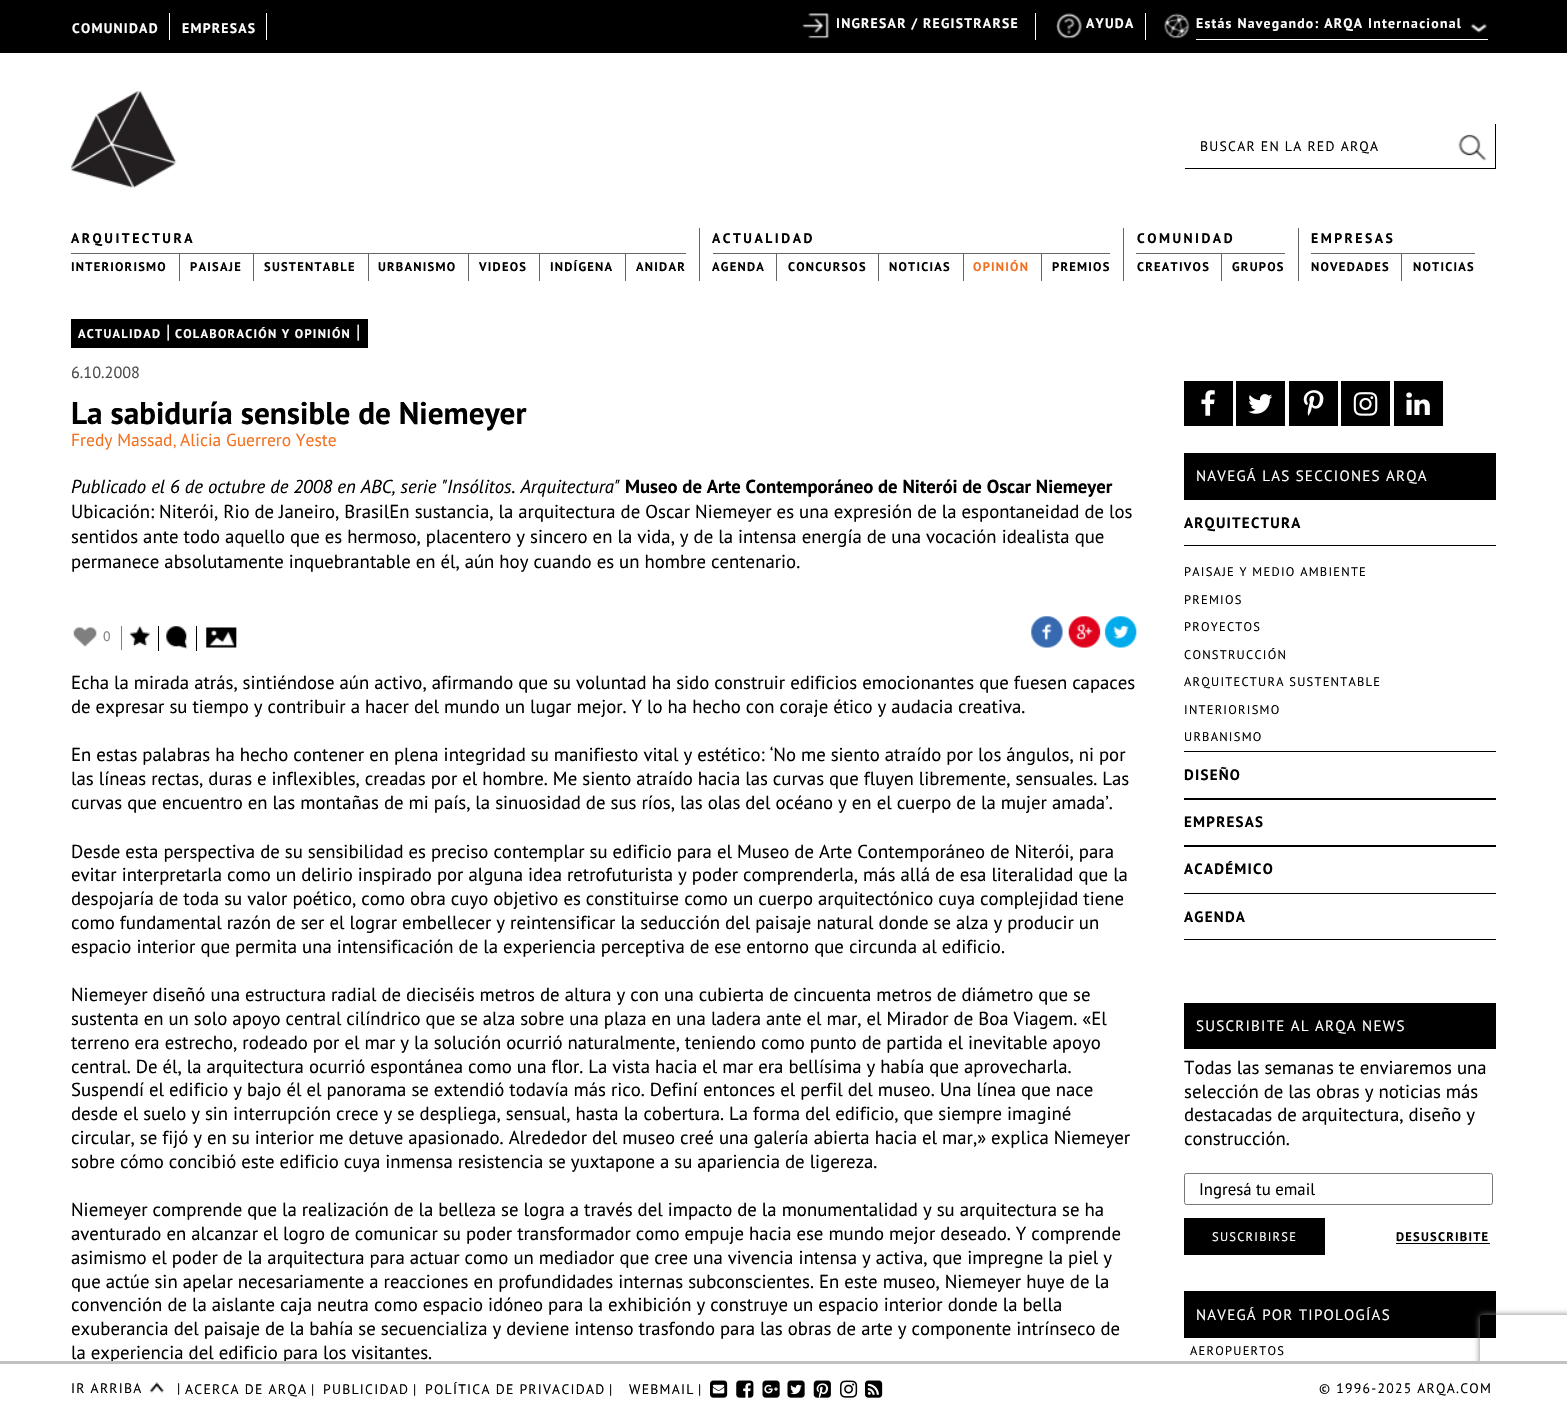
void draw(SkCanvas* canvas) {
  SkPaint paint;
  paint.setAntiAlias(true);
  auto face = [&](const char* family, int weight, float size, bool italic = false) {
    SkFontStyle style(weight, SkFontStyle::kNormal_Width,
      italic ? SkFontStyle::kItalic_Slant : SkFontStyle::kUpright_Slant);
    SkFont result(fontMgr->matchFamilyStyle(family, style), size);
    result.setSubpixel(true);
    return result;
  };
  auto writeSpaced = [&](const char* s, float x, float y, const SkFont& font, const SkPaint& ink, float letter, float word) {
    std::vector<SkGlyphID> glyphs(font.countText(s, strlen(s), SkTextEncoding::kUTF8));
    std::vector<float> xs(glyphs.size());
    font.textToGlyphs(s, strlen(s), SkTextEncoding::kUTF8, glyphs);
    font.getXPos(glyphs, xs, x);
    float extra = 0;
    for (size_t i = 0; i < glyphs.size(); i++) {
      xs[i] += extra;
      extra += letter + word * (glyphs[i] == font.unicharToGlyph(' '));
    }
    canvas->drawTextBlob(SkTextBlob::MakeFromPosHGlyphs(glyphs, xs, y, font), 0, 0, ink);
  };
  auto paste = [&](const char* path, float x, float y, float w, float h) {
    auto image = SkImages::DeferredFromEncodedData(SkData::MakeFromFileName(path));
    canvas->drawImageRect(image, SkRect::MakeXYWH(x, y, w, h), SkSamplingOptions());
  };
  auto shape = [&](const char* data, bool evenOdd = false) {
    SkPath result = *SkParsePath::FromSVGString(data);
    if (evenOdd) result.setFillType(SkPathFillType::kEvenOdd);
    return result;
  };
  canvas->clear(0xffffffff);
  {
    const struct { float x, y, w, h; SkColor color; } items[] = {
      {0, 0, 1567, 53, 0xff000000},
      {169, 13, 1, 27, 0xffffffff},
      {266, 13, 1, 27, 0xffffffff},
      {1035, 13, 1, 27, 0xffffffff},
    };
    for (auto [x, y, w, h, color] : items) {
      paint.setColor(color);
      canvas->drawRect(SkRect::MakeXYWH(x, y, w, h), paint);
    }
  }
  paste("img/1.png", 802, 13, 28, 26);
  canvas->drawRect(SkRect::MakeXYWH(1145, 13, 1, 27), paint);
  paste("img/2.png", 1055, 13, 27, 26);
  paste("img/3.png", 1164, 13, 26, 26);
  canvas->drawRect(SkRect::MakeXYWH(1196, 39, 292, 1), paint);
  paste("img/4.png", 1470, 23, 17, 10);
  paste("img/5.png", 71, 91, 106, 97);
  paint.setColor(0xff000000);
  canvas->drawRect(SkRect::MakeXYWH(1495, 124, 1, 45), paint);
  canvas->drawRect(SkRect::MakeXYWH(1185, 168, 311, 1), paint);
  paste("img/6.png", 1458, 134, 29, 27);
  {
    const struct { float x, y, w, h; SkColor color; } items[] = {
      {699, 228, 1, 53, 0xff666666},
      {71, 253, 615, 1, 0xff666666},
      {179, 253, 1, 28, 0xff666666},
      {253, 253, 1, 28, 0xff666666},
      {368, 253, 1, 28, 0xff666666},
      {468, 253, 1, 28, 0xff666666},
      {539, 253, 1, 28, 0xff666666},
      {625, 253, 1, 28, 0xff666666},
      {1123, 228, 1, 53, 0xff666666},
      {713, 253, 397, 1, 0xff666666},
      {776, 253, 1, 28, 0xff666666},
      {878, 253, 1, 28, 0xff666666},
      {963, 253, 1, 28, 0xff666666},
      {1041, 253, 1, 28, 0xff666666},
      {1298, 228, 1, 53, 0xff666666},
      {1136, 253, 149, 1, 0xff666666},
      {1221, 253, 1, 28, 0xff666666},
      {1311, 253, 164, 1, 0xff666666},
      {1401, 253, 1, 28, 0xff666666},
      {71, 319, 297, 29, 0xff000000},
    };
    for (auto [x, y, w, h, color] : items) {
      paint.setColor(color);
      canvas->drawRect(SkRect::MakeXYWH(x, y, w, h), paint);
    }
  }
  paste("img/7.png", 73, 627, 24, 20);
  paint.setColor(0xff808080);
  canvas->drawRect(SkRect::MakeXYWH(121, 626, 1, 24), paint);
  paste("img/8.png", 129, 626, 22, 21);
  paste("img/9.png", 166, 626, 22, 23);
  paint.setColor(0xff000000);
  canvas->drawRect(SkRect::MakeXYWH(196, 626, 1, 25), paint);
  canvas->drawRect(SkRect::MakeXYWH(158, 626, 1, 25), paint);
  paste("img/10.png", 206, 627, 31, 21);
  paste("img/11.png", 1031, 616, 32, 32);
  paste("img/12.png", 1068, 616, 33, 32);
  paste("img/13.png", 1104, 616, 33, 32);
  canvas->drawRect(SkRect::MakeXYWH(1184, 381, 49, 45), paint);
  paste("img/14.png", 1201, 390, 14, 26);
  canvas->drawRect(SkRect::MakeXYWH(1236, 381, 49, 45), paint);
  paste("img/15.png", 1248, 394, 25, 20);
  canvas->drawRect(SkRect::MakeXYWH(1289, 381, 49, 45), paint);
  paste("img/16.png", 1303, 390, 21, 26);
  canvas->drawRect(SkRect::MakeXYWH(1341, 381, 49, 45), paint);
  paste("img/17.png", 1353, 392, 25, 24);
  canvas->drawRect(SkRect::MakeXYWH(1394, 381, 49, 45), paint);
  paste("img/18.png", 1406, 392, 24, 23);
  {
    const struct { float x, y, w, h; SkColor color; } items[] = {
      {1184, 453, 312, 47, 0xff000000},
      {1184, 545, 312, 1, 0xff000000},
      {1184, 751, 312, 1, 0xff000000},
      {1184, 798, 312, 2, 0xff000000},
      {1184, 845, 312, 2, 0xff000000},
      {1184, 893, 312, 1, 0xff000000},
      {1184, 939, 312, 1, 0xff000000},
      {1184, 1003, 312, 46, 0xff000000},
    };
    for (auto [x, y, w, h, color] : items) {
      paint.setColor(color);
      canvas->drawRect(SkRect::MakeXYWH(x, y, w, h), paint);
    }
  }
  paint.setStroke(true);
  paint.setStrokeWidth(1);
  paint.setColor(0xff767676);
  canvas->drawRoundRect(SkRect::MakeXYWH(1184.5f, 1173.5f, 308, 31), 2, 2, paint);
  paint.setStroke(false);
  {
    const struct { float x, y, w, h; SkColor color; } items[] = {
      {1184, 1218, 141, 37, 0xff000000},
      {1396, 1243, 94, 1, 0xff000000},
      {1184, 1291, 312, 47, 0xff000000},
    };
    for (auto [x, y, w, h, color] : items) {
      paint.setColor(color);
      canvas->drawRect(SkRect::MakeXYWH(x, y, w, h), paint);
    }
  }
  canvas->save();
  canvas->clipPath(shape("M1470 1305H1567V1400H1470ZM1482.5 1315H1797.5C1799 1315 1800 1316 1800 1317.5V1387.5C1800 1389 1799 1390 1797.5 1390H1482.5C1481 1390 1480 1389 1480 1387.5V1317.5C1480 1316 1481 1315 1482.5 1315Z", true), true);
  paint.setColor(0xff808080);
  paint.setMaskFilter(SkMaskFilter::MakeBlur(kNormal_SkBlurStyle, 3));
  canvas->drawRoundRect(SkRect::MakeXYWH(1480, 1315, 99, 75), 2.5f, 2.5f, paint);
  paint.setMaskFilter(nullptr);
  canvas->restore();
  paint.setColor(0xffffffff);
  canvas->drawRect(SkRect::MakeXYWH(1474, 1364, 93, 32), paint);
  paste("img/19.png", 149, 1382, 15, 11);
  paste("img/20.png", 710, 1380, 18, 18);
  paste("img/21.png", 736, 1380, 18, 18);
  paste("img/22.png", 762, 1380, 18, 18);
  paste("img/23.png", 787, 1380, 18, 18);
  paste("img/24.png", 813, 1380, 18, 18);
  paste("img/25.png", 840, 1380, 18, 18);
  paste("img/26.png", 865, 1380, 18, 18);
  auto f0 = face("PT Sans", 700, 13.75f);
  {
    const struct { const char* s; float x, y; } items[] = {
      {"COMUNIDAD", 72, 33},
      {"EMPRESAS", 182, 33},
      {"INGRESAR / REGISTRARSE", 836, 28},
      {"AYUDA", 1086, 28},
      {"Estás Navegando: ARQA Internacional", 1196, 28},
    };
    for (auto [s, x, y] : items) {
      writeSpaced(s, x, y, f0, paint, 1.25f, 0);
    }
  }
  auto f1 = face("PT Sans", 400, 13.75f);
  paint.setColor(0xff000000);
  writeSpaced("BUSCAR EN LA RED ARQA", 1200, 151, f1, paint, 1.25f, 0);
  writeSpaced("ARQUITECTURA", 71, 243, f0, paint, 2.5f, 0);
  auto f2 = face("PT Sans", 700, 12.5f);
  {
    const struct { const char* s; float x, y; } items[] = {
      {"INTERIORISMO", 71, 271},
      {"PAISAJE", 190, 271},
      {"SUSTENTABLE", 264, 271},
      {"URBANISMO", 378, 271},
      {"VIDEOS", 479, 271},
      {"INDÍGENA", 550, 271},
      {"ANIDAR", 636, 271},
    };
    for (auto [s, x, y] : items) {
      writeSpaced(s, x, y, f2, paint, 1.25f, 0);
    }
  }
  writeSpaced("ACTUALIDAD", 712, 243, f0, paint, 2.5f, 0);
  {
    const struct { const char* s; float x, y; } items[] = {
      {"AGENDA", 712, 271},
      {"CONCURSOS", 788, 271},
      {"NOTICIAS", 889, 271},
    };
    for (auto [s, x, y] : items) {
      writeSpaced(s, x, y, f2, paint, 1.25f, 0);
    }
  }
  paint.setColor(0xfff27121);
  writeSpaced("OPINIÓN", 973, 271, f2, paint, 1.25f, 0);
  paint.setColor(0xff000000);
  writeSpaced("PREMIOS", 1052, 271, f2, paint, 1.25f, 0);
  writeSpaced("COMUNIDAD", 1137, 243, f0, paint, 2.5f, 0);
  writeSpaced("CREATIVOS", 1137, 271, f2, paint, 1.25f, 0);
  writeSpaced("GRUPOS", 1232, 271, f2, paint, 1.25f, 0);
  writeSpaced("EMPRESAS", 1311, 243, f0, paint, 2.5f, 0);
  writeSpaced("NOVEDADES", 1311, 271, f2, paint, 1.25f, 0);
  writeSpaced("NOTICIAS", 1413, 271, f2, paint, 1.25f, 0);
  paint.setColor(0xffffffff);
  writeSpaced("ACTUALIDAD", 78, 338, f2, paint, 1.25f, 0);
  auto f3 = face("PT Sans", 400, 18.75f);
  canvas->drawString("|", 166, 338, f3, paint);
  writeSpaced("COLABORACIÓN Y OPINIÓN", 175, 338, f2, paint, 1.25f, 0);
  canvas->drawString("|", 356, 338, f3, paint);
  auto f4 = face("PT Sans", 400, 16.25f);
  paint.setColor(0xff4d4d4d);
  canvas->drawString("6.10.2008", 71, 378, f4, paint);
  auto f5 = face("PT Sans", 700, 31.25f);
  paint.setColor(0xff000000);
  canvas->drawString("La sabiduría sensible de Niemeyer", 71, 424, f5, paint);
  auto f6 = face("PT Sans", 400, 17.5f);
  paint.setColor(0xfff27121);
  canvas->drawString("Fredy Massad", 71, 446, f6, paint);
  auto f7 = face("PT Sans", 400, 15);
  canvas->drawString(",", 173, 446, f7, paint);
  canvas->drawString("Alicia Guerrero Yeste", 180, 446, f6, paint);
  auto f8 = face("PT Sans", 400, 18.75f, true);
  paint.setColor(0xff000000);
  canvas->drawString("Publicado el 6 de octubre de 2008 en ABC, serie \"Insólitos. Arquitectura\"", 71, 493, f8, paint);
  auto f9 = face("PT Sans", 700, 18.75f);
  canvas->drawString("Museo de Arte Contemporáneo de Niterói de Oscar Niemeyer", 625, 493, f9, paint);
  {
    const struct { const char* s; float x, y; } items[] = {
      {"Ubicación: Niterói, Rio de Janeiro, BrasilEn sustancia, la arquitectura de Oscar Niemeyer es una expresión de la espontaneidad de los", 71, 518},
      {"sentidos ante todo aquello que es hermoso, placentero y sincero en la vida, y de la intensa energía de una vocación idealista que", 71, 543},
      {"permanece absolutamente inquebrantable en él, aún hoy cuando es un hombre centenario.", 71, 568},
    };
    for (auto [s, x, y] : items) {
      canvas->drawString(s, x, y, f3, paint);
    }
  }
  paint.setColor(0xff808080);
  canvas->drawString("0", 103, 641, f1, paint);
  paint.setColor(0xff000000);
  {
    const struct { const char* s; float x, y; } items[] = {
      {"Echa la mirada atrás, sintiéndose aún activo, afirmando que su voluntad ha sido construir edificios emocionantes que fuesen capaces", 71, 689},
      {"de expresar su tiempo y contribuir a hacer del mundo un lugar mejor. Y lo ha hecho con coraje ético y audacia creativa.", 71, 713},
      {"En estas palabras ha hecho contener en plena integridad su manifiesto vital y estético: ‘No me siento atraído por los ángulos, ni por", 71, 761},
      {"las líneas rectas, duras e inflexibles, creadas por el hombre. Me siento atraído hacia las curvas que fluyen libremente, sensuales. Las", 71, 785},
      {"curvas que encuentro en las montañas de mi país, la sinuosidad de sus ríos, las olas del océano y en el cuerpo de la mujer amada’.", 71, 809},
      {"Desde esta perspectiva de su sensibilidad es preciso contemplar su edificio para el Museo de Arte Contemporáneo de Niterói, para", 71, 858},
      {"evitar interpretarla como un delirio inspirado por alguna idea retrofuturista y poder comprenderla, más allá de esa literalidad que la", 71, 881},
      {"despojaría de toda su valor poético, como obra cuyo objetivo es constituirse como un cuerpo arquitectónico cuya complejidad tiene", 71, 905},
      {"como fundamental razón de ser el lograr embellecer y reintensificar la seducción del paisaje natural donde se alza y producir un", 71, 929},
      {"espacio interior que permita una intensificación de la experiencia perceptiva de ese entorno que circunda al edificio.", 71, 953},
      {"Niemeyer diseñó una estructura radial de dieciséis metros de altura y con una cubierta de cincuenta metros de diámetro que se", 71, 1001},
      {"sustenta en un solo apoyo central cilíndrico que se alza sobre una plaza en una ladera ante el mar, el Mirador de Boa Viagem. «El", 71, 1025},
      {"terreno era estrecho, rodeado por el mar y la solución ocurrió naturalmente, teniendo como punto de partida el inevitable apoyo", 71, 1049},
      {"central. De él, la arquitectura ocurrió espontánea como una flor. La vista hacia el mar era bellísima y había que aprovecharla.", 71, 1073},
      {"Suspendí el edificio y bajo él el panorama se extendió todavía más rico. Definí entonces el perfil del museo. Una línea que nace", 71, 1096},
      {"desde el suelo y sin interrupción crece y se despliega, sensual, hasta la cobertura. La forma del edificio, que siempre imaginé", 71, 1120},
      {"circular, se fijó y en su interior me detuve apasionado. Alrededor del museo creé una galería abierta hacia el mar,» explica Niemeyer", 71, 1144},
      {"sobre cómo concibió este edificio cuya inmensa resistencia se yuxtapone a su apariencia de ligereza.", 71, 1168},
      {"Niemeyer comprende que la realización de la belleza se logra a través del impacto de la monumentalidad y su arquitectura se ha", 71, 1216},
      {"aventurado en alcanzar el logro de comunicar su poder transformador como empuje hacia ese mundo mejor deseado. Y comprende", 71, 1240},
      {"asimismo el poder de la arquitectura para actuar como un mediador que cree una vivencia intensa y activa, que impregne la piel y", 71, 1264},
      {"que actúe sin apelar necesariamente a reacciones en profundidades internas subconscientes. En este museo, Niemeyer huye de la", 71, 1288},
      {"convención de la aislante caja neutra como espacio idóneo para la exhibición y construye un espacio interior donde la bella", 71, 1311},
      {"exuberancia del paisaje de la bahía se secuencializa y deviene intenso trasfondo para las obras de arte y componente intrínseco de", 71, 1335},
      {"la experiencia del edificio para los visitantes.", 71, 1359},
    };
    for (auto [s, x, y] : items) {
      canvas->drawString(s, x, y, f3, paint);
    }
  }
  paint.setColor(0xffffffff);
  writeSpaced("NAVEGÁ LAS SECCIONES ARQA", 1196, 481, f7, paint, 1.25f, 0);
  auto f10 = face("PT Sans", 700, 15);
  paint.setColor(0xff000000);
  writeSpaced("ARQUITECTURA", 1184, 528, f10, paint, 1.25f, 0);
  auto f11 = face("PT Sans", 400, 12.5f);
  {
    const struct { const char* s; float x, y; } items[] = {
      {"PAISAJE Y MEDIO AMBIENTE", 1184, 576},
      {"PREMIOS", 1184, 604},
      {"PROYECTOS", 1184, 631},
      {"CONSTRUCCIÓN", 1184, 659},
      {"ARQUITECTURA SUSTENTABLE", 1184, 686},
      {"INTERIORISMO", 1184, 714},
      {"URBANISMO", 1184, 741},
    };
    for (auto [s, x, y] : items) {
      writeSpaced(s, x, y, f11, paint, 1.25f, 0);
    }
  }
  {
    const struct { const char* s; float x, y; } items[] = {
      {"DISEÑO", 1184, 780},
      {"EMPRESAS", 1184, 827},
      {"ACADÉMICO", 1184, 874},
      {"AGENDA", 1184, 922},
    };
    for (auto [s, x, y] : items) {
      writeSpaced(s, x, y, f10, paint, 1.25f, 0);
    }
  }
  paint.setColor(0xffffffff);
  writeSpaced("SUSCRIBITE AL ARQA NEWS", 1196, 1031, f7, paint, 1.25f, 0);
  paint.setColor(0xff000000);
  {
    const struct { const char* s; float x, y; } items[] = {
      {"Todas las semanas te enviaremos una", 1184, 1074},
      {"selección de las obras y noticias más", 1184, 1098},
      {"destacadas de arquitectura, diseño y", 1184, 1121},
      {"construcción.", 1184, 1145},
    };
    for (auto [s, x, y] : items) {
      canvas->drawString(s, x, y, f3, paint);
    }
  }
  auto f12 = face("PT Sans", 400, 16.75f);
  canvas->drawString("Ingresá tu email", 1199, 1195, f12, paint);
  paint.setColor(0xffffffff);
  writeSpaced("SUSCRIBIRSE", 1212, 1241, f11, paint, 1.25f, 0);
  paint.setColor(0xff000000);
  writeSpaced("DESUSCRIBITE", 1396, 1241, f2, paint, 1.25f, 0);
  paint.setColor(0xffffffff);
  writeSpaced("NAVEGÁ POR TIPOLOGÍAS", 1196, 1320, f7, paint, 1.25f, 0);
  paint.setColor(0xff000000);
  writeSpaced("AEROPUERTOS", 1190, 1355, f11, paint, 1.25f, 0);
  paint.setColor(0xffc1c1c1);
  canvas->drawRect(SkRect::MakeXYWH(0, 1361, 1567, 3), paint);
  paint.setColor(0xff000000);
  {
    const struct { const char* s; float x, y; } items[] = {
      {"IR ARRIBA", 71, 1393},
      {"|", 177, 1393},
      {"ACERCA DE ARQA", 185, 1394},
      {"|", 311, 1394},
      {"PUBLICIDAD", 323, 1394},
      {"|", 413, 1394},
      {"POLÍTICA DE PRIVACIDAD", 425, 1394},
      {"|", 609, 1394},
      {"WEBMAIL", 629, 1394},
      {"|", 698, 1394},
      {"© 1996-2025 ARQA.COM", 1319, 1393},
    };
    for (auto [s, x, y] : items) {
      writeSpaced(s, x, y, f1, paint, 1.25f, 0);
    }
  }
}
